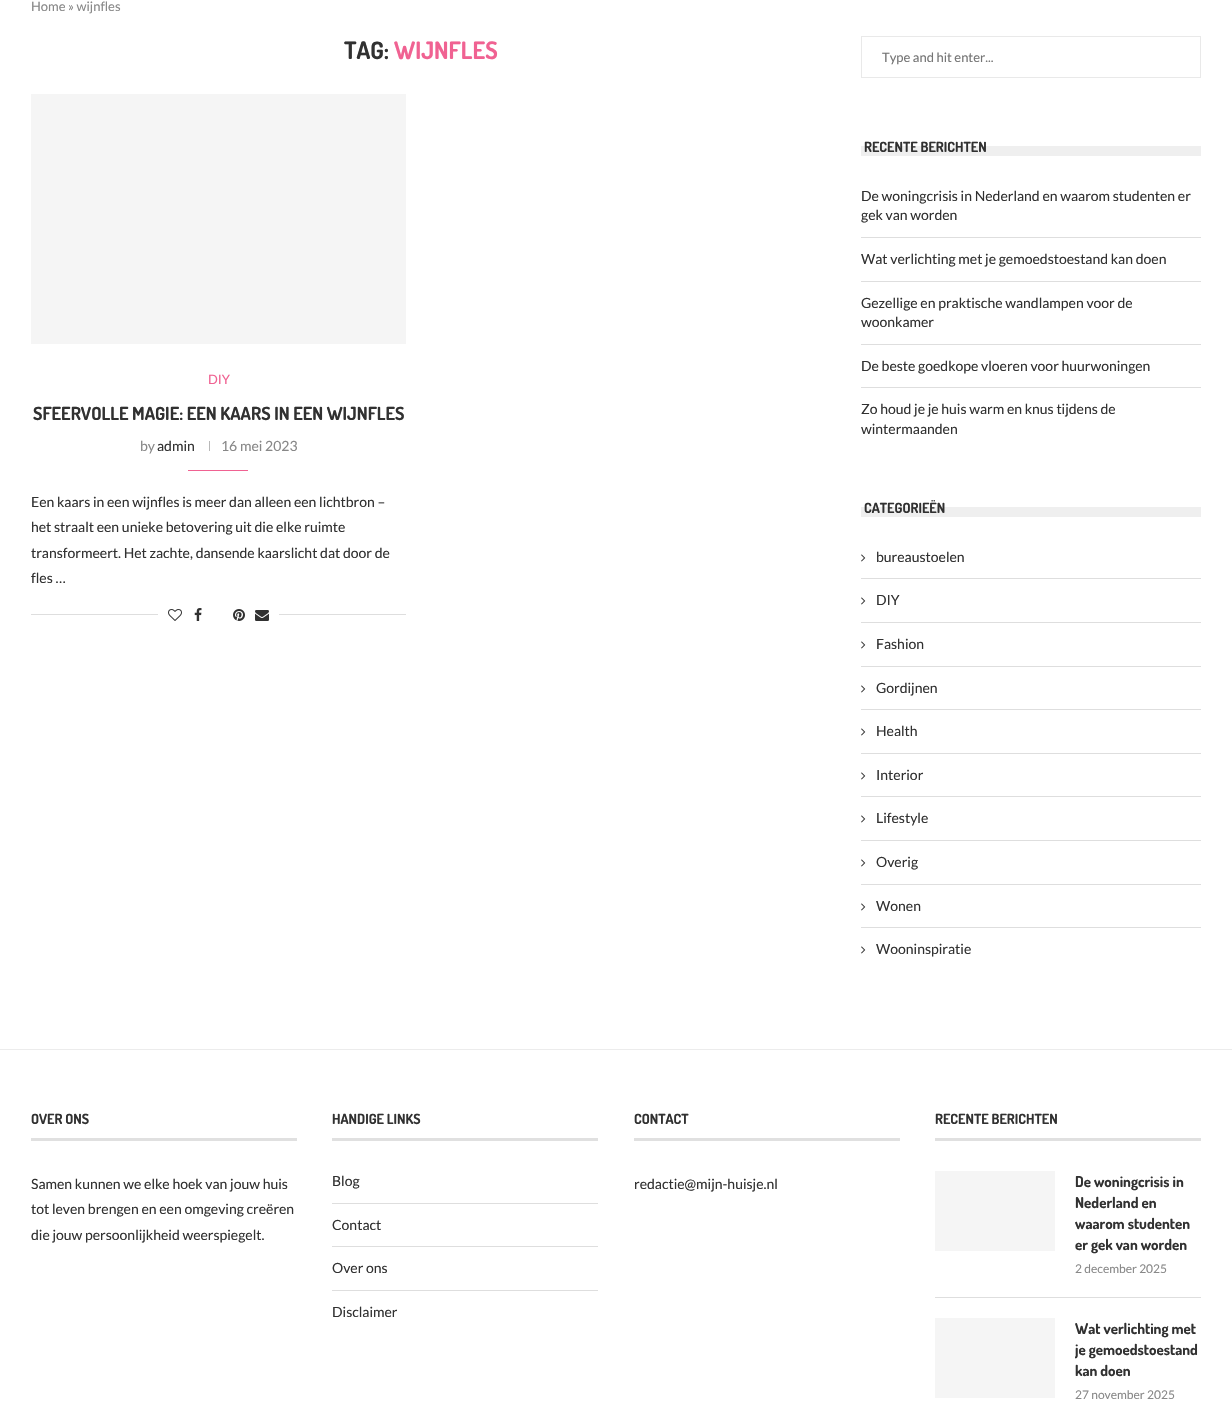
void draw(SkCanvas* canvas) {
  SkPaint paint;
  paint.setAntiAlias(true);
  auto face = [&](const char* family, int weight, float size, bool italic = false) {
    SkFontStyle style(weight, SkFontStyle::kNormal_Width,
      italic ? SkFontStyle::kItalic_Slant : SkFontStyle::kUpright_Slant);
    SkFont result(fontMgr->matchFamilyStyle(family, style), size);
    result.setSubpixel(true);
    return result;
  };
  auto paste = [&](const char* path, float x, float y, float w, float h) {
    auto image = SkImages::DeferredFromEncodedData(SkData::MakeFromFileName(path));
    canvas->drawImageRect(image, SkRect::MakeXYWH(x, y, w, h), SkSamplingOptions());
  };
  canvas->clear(0xffffffff);
  {
    const struct { float x, y, w, h; SkColor color; } items[] = {
      {31, 94, 375, 250, 0xfff5f5f5},
      {209, 441, 1, 10, 0xffb8b8b8},
      {188, 470, 60, 1, 0xfff06292},
      {31, 614, 375, 1, 0xffdedede},
      {158, 614, 121, 1, 0xffffffff},
    };
    for (auto [x, y, w, h, color] : items) {
      paint.setColor(color);
      canvas->drawRect(SkRect::MakeXYWH(x, y, w, h), paint);
    }
  }
  paste("img/1.png", 168, 609, 14, 12);
  paste("img/2.png", 194, 608, 8, 13);
  paste("img/3.png", 233, 609, 12, 12);
  paste("img/4.png", 255, 610, 14, 11);
  paint.setStroke(true);
  paint.setStrokeWidth(1);
  paint.setColor(0xffe9e9e9);
  canvas->drawRect(SkRect::MakeXYWH(861.5f, 36.5f, 339, 41), paint);
  paint.setStroke(false);
  {
    const struct { float x, y, w, h; SkColor color; } items[] = {
      {861, 146, 340, 10, 0xffefefef},
      {861, 237, 340, 1, 0xffdedede},
      {861, 281, 340, 1, 0xffdedede},
      {861, 344, 340, 1, 0xffdedede},
      {861, 387, 340, 1, 0xffdedede},
      {861, 507, 340, 10, 0xffefefef},
      {861, 578, 340, 1, 0xffdedede},
    };
    for (auto [x, y, w, h, color] : items) {
      paint.setColor(color);
      canvas->drawRect(SkRect::MakeXYWH(x, y, w, h), paint);
    }
  }
  paste("img/5.png", 861, 554, 5, 8);
  canvas->drawRect(SkRect::MakeXYWH(861, 622, 340, 1), paint);
  paste("img/5.png", 861, 597, 5, 8);
  canvas->drawRect(SkRect::MakeXYWH(861, 666, 340, 1), paint);
  paste("img/5.png", 861, 641, 5, 8);
  canvas->drawRect(SkRect::MakeXYWH(861, 709, 340, 1), paint);
  paste("img/5.png", 861, 685, 5, 8);
  canvas->drawRect(SkRect::MakeXYWH(861, 753, 340, 1), paint);
  paste("img/5.png", 861, 728, 5, 8);
  canvas->drawRect(SkRect::MakeXYWH(861, 796, 340, 1), paint);
  paste("img/5.png", 861, 772, 5, 8);
  canvas->drawRect(SkRect::MakeXYWH(861, 840, 340, 1), paint);
  paste("img/5.png", 861, 815, 5, 8);
  canvas->drawRect(SkRect::MakeXYWH(861, 884, 340, 1), paint);
  paste("img/5.png", 861, 859, 5, 8);
  canvas->drawRect(SkRect::MakeXYWH(861, 927, 340, 1), paint);
  paste("img/5.png", 861, 903, 5, 8);
  paste("img/5.png", 861, 946, 5, 8);
  {
    const struct { float x, y, w, h; SkColor color; } items[] = {
      {0, 1049, 1232, 1, 0xffececec},
      {31, 1138, 266, 3, 0xffe0e0e0},
      {332, 1138, 266, 3, 0xffe0e0e0},
      {332, 1203, 266, 1, 0xffdedede},
      {332, 1246, 266, 1, 0xffdedede},
      {332, 1290, 266, 1, 0xffdedede},
      {634, 1138, 266, 3, 0xffe0e0e0},
      {935, 1138, 266, 3, 0xffe0e0e0},
      {935, 1297, 266, 1, 0xffdedede},
      {935, 1171, 120, 80, 0xfff5f5f5},
      {935, 1318, 120, 80, 0xfff5f5f5},
    };
    for (auto [x, y, w, h, color] : items) {
      paint.setColor(color);
      canvas->drawRect(SkRect::MakeXYWH(x, y, w, h), paint);
    }
  }
  auto f0 = face("Lato", 400, 13);
  paint.setColor(0xff888888);
  canvas->drawString("Home » wijnfles", 31, 11, f0, paint);
  auto f1 = face("Dosis", 700, 24);
  paint.setColor(0xff313131);
  canvas->drawString("TAG:", 344, 59, f1, paint);
  paint.setColor(0xfff06292);
  canvas->drawString("WIJNFLES", 394, 59, f1, paint);
  canvas->drawString("DIY", 208, 384, f0, paint);
  auto f2 = face("Dosis", 700, 18);
  paint.setColor(0xff313131);
  canvas->drawString("SFEERVOLLE MAGIE: EEN KAARS IN EEN WIJNFLES", 33, 420, f2, paint);
  auto f3 = face("Lato", 400, 14);
  paint.setColor(0xff888888);
  canvas->drawString("by", 140, 451, f3, paint);
  paint.setColor(0xff313131);
  canvas->drawString("admin", 157, 451, f3, paint);
  paint.setColor(0xff888888);
  canvas->drawString("16 mei 2023", 221, 451, f3, paint);
  paint.setColor(0xff313131);
  {
    const struct { const char* s; float x, y; } items[] = {
      {"Een kaars in een wijnfles is meer dan alleen een lichtbron –", 31, 507},
      {"het straalt een unieke betovering uit die elke ruimte", 31, 532},
      {"transformeert. Het zachte, dansende kaarslicht dat door de", 31, 558},
      {"fles …", 31, 583},
    };
    for (auto [s, x, y] : items) {
      canvas->drawString(s, x, y, f3, paint);
    }
  }
  paint.setColor(0xff757575);
  canvas->drawString("Type and hit enter...", 882, 62, f0, paint);
  auto f4 = face("Dosis", 700, 14);
  paint.setColor(0xff313131);
  canvas->drawString("RECENTE BERICHTEN", 864, 152, f4, paint);
  {
    const struct { const char* s; float x, y; } items[] = {
      {"De woningcrisis in Nederland en waarom studenten er", 861, 201},
      {"gek van worden", 861, 220},
      {"Wat verlichting met je gemoedstoestand kan doen", 861, 264},
      {"Gezellige en praktische wandlampen voor de", 861, 308},
      {"woonkamer", 861, 327},
      {"De beste goedkope vloeren voor huurwoningen", 861, 371},
      {"Zo houd je je huis warm en knus tijdens de", 861, 414},
      {"wintermaanden", 861, 434},
    };
    for (auto [s, x, y] : items) {
      canvas->drawString(s, x, y, f3, paint);
    }
  }
  canvas->drawString("CATEGORIEËN", 864, 513, f4, paint);
  {
    const struct { const char* s; float x, y; } items[] = {
      {"bureaustoelen", 876, 562},
      {"DIY", 876, 605},
      {"Fashion", 876, 649},
      {"Gordijnen", 876, 693},
      {"Health", 876, 736},
      {"Interior", 876, 780},
      {"Lifestyle", 876, 823},
      {"Overig", 876, 867},
      {"Wonen", 876, 911},
      {"Wooninspiratie", 876, 954},
    };
    for (auto [s, x, y] : items) {
      canvas->drawString(s, x, y, f3, paint);
    }
  }
  canvas->drawString("OVER ONS", 31, 1124, f4, paint);
  {
    const struct { const char* s; float x, y; } items[] = {
      {"Samen kunnen we elke hoek van jouw huis", 31, 1189},
      {"tot leven brengen en een omgeving creëren", 31, 1214},
      {"die jouw persoonlijkheid weerspiegelt.", 31, 1240},
    };
    for (auto [s, x, y] : items) {
      canvas->drawString(s, x, y, f3, paint);
    }
  }
  canvas->drawString("HANDIGE LINKS", 332, 1124, f4, paint);
  {
    const struct { const char* s; float x, y; } items[] = {
      {"Blog", 332, 1186},
      {"Contact", 332, 1230},
      {"Over ons", 332, 1273},
      {"Disclaimer", 332, 1317},
    };
    for (auto [s, x, y] : items) {
      canvas->drawString(s, x, y, f3, paint);
    }
  }
  canvas->drawString("CONTACT", 634, 1124, f4, paint);
  canvas->drawString("redactie@mijn-huisje.nl", 634, 1189, f3, paint);
  canvas->drawString("RECENTE BERICHTEN", 935, 1124, f4, paint);
  auto f5 = face("Dosis", 700, 15);
  {
    const struct { const char* s; float x, y; } items[] = {
      {"De woningcrisis in", 1075, 1187},
      {"Nederland en", 1075, 1208},
      {"waarom studenten", 1075, 1229},
      {"er gek van worden", 1075, 1250},
    };
    for (auto [s, x, y] : items) {
      canvas->drawString(s, x, y, f5, paint);
    }
  }
  auto f6 = face("Lato", 400, 12);
  paint.setColor(0xff888888);
  canvas->drawString("2 december 2025", 1075, 1273, f6, paint);
  paint.setColor(0xff313131);
  canvas->drawString("Wat verlichting met", 1075, 1334, f5, paint);
  canvas->save();
  canvas->clipRect(SkRect::MakeXYWH(1075, 1318, 126, 85));
  canvas->drawString("je gemoedstoestand", 1075, 1355, f5, paint);
  canvas->restore();
  canvas->drawString("kan doen", 1075, 1376, f5, paint);
  paint.setColor(0xff888888);
  canvas->drawString("27 november 2025", 1075, 1399, f6, paint);
}
